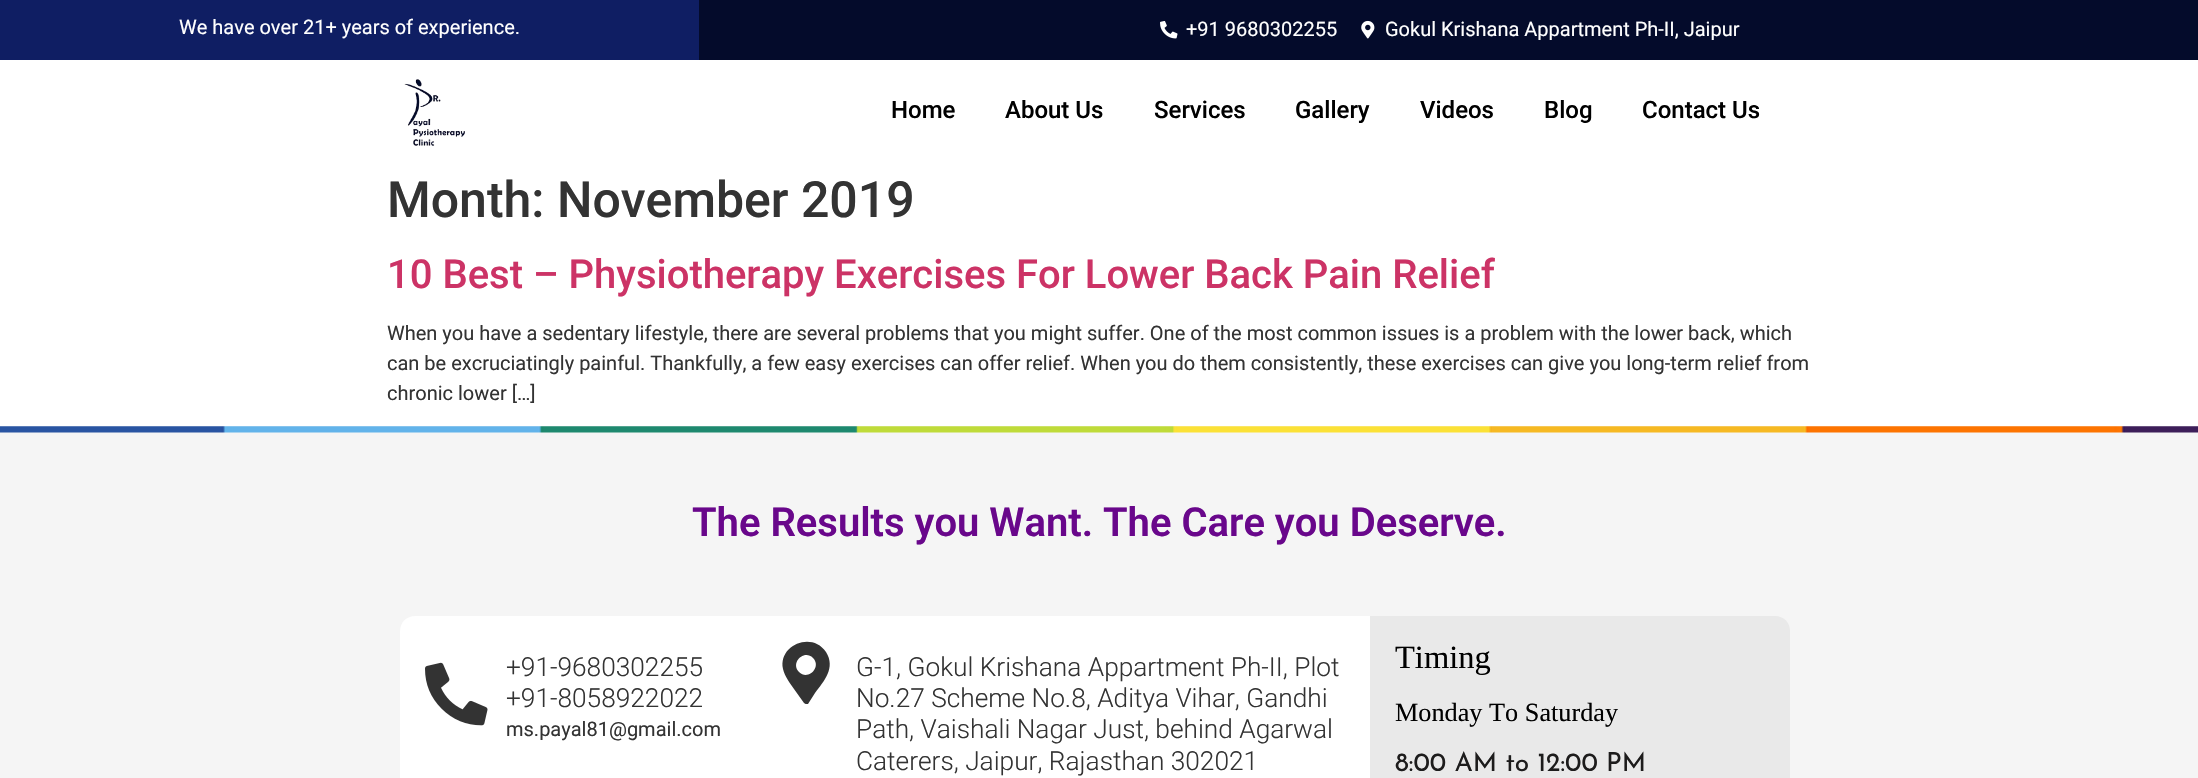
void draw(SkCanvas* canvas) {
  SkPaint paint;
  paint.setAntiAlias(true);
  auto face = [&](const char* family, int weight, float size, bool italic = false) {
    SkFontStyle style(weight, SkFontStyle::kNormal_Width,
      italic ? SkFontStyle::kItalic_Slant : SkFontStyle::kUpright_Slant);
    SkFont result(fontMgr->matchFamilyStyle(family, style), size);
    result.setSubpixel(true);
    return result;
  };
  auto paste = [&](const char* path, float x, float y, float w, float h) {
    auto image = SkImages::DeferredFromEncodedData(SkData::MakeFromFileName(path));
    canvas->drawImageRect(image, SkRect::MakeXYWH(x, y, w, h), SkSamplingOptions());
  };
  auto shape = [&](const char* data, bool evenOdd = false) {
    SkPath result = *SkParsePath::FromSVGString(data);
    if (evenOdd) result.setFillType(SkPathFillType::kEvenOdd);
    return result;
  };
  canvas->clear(0xffffffff);
  paint.setColor(0xff0f1e63);
  canvas->drawRect(SkRect::MakeXYWH(0, 0, 699, 60), paint);
  paint.setColor(0xff040b2b);
  canvas->drawRect(SkRect::MakeXYWH(699, 0, 1499, 60), paint);
  paste("img/1.png", 1160, 21, 18, 18);
  paste("img/2.png", 1361, 20, 14, 19);
  paste("img/3.png", 404, 79, 61, 67);
  paint.setColor(0xfff5f5f5);
  canvas->drawRect(SkRect::MakeXYWH(0, 426, 2198, 352), paint);
  paste("img/4.png", 0, 426, 2198, 7);
  paint.setColor(0xffffffff);
  canvas->drawPath(shape("M415 616H750V778C750 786.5 743.5 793 735 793H415C406.5 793 400 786.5 400 778V631C400 622.5 406.5 616 415 616Z"), paint);
  paste("img/5.png", 425, 662, 63, 64);
  canvas->drawRect(SkRect::MakeXYWH(750, 616, 620, 162), paint);
  paint.setColor(0xff333333);
  canvas->drawPath(shape("M804 703L794 689C790 683 785 677 783 669C778 645 812 631 826 652C836 668 824 681 815 693L808 704C806 704 805 704 804 703ZM799 672C808 681 822 667 813 658C804 649 790 663 799 672Z"), paint);
  paint.setColor(0xffe9e9e9);
  canvas->drawPath(shape("M1370 616H1775C1783.5 616 1790 622.5 1790 631V778C1790 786.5 1783.5 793 1775 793H1370Z"), paint);
  auto f0 = face("Roboto", 400, 20);
  paint.setColor(0xffffffff);
  {
    const struct { const char* s; float x, y; } items[] = {
      {"We have over 21+ years of experience.", 179, 34},
      {"+91 9680302255", 1186, 36},
      {"Gokul Krishana Appartment Ph-II, Jaipur", 1385, 36},
    };
    for (auto [s, x, y] : items) {
      canvas->drawString(s, x, y, f0, paint);
    }
  }
  auto f1 = face("Roboto", 500, 24);
  paint.setColor(0xff000000);
  {
    const struct { const char* s; float x, y; } items[] = {
      {"Home", 891, 118},
      {"About Us", 1005, 118},
      {"Services", 1154, 118},
      {"Gallery", 1295, 118},
      {"Videos", 1420, 118},
      {"Blog", 1544, 118},
      {"Contact Us", 1642, 118},
    };
    for (auto [s, x, y] : items) {
      canvas->drawString(s, x, y, f1, paint);
    }
  }
  auto f2 = face("Roboto", 500, 50);
  paint.setColor(0xff333333);
  canvas->drawString("Month: November 2019", 387, 217, f2, paint);
  auto f3 = face("Roboto", 500, 40);
  paint.setColor(0xffcc3366);
  canvas->drawString("10 Best – Physiotherapy Exercises For Lower Back Pain Relief", 387, 288, f3, paint);
  paint.setColor(0xff333333);
  {
    const struct { const char* s; float x, y; } items[] = {
      {"When you have a sedentary lifestyle, there are several problems that you might suffer. One of the most common issues is a problem with the lower back, which", 387, 340},
      {"can be excruciatingly painful. Thankfully, a few easy exercises can offer relief. When you do them consistently, these exercises can give you long-term relief from", 387, 370},
      {"chronic lower […]", 387, 400},
    };
    for (auto [s, x, y] : items) {
      canvas->drawString(s, x, y, f0, paint);
    }
  }
  auto f4 = face("Roboto", 600, 40);
  paint.setColor(0xff69078b);
  canvas->drawString("The Results you Want. The Care you Deserve.", 692, 536, f4, paint);
  auto f5 = face("Roboto", 300, 26.25f);
  paint.setColor(0xff333333);
  canvas->drawString("+91-9680302255", 506, 676, f5, paint);
  canvas->drawString("+91-8058922022", 506, 707, f5, paint);
  canvas->drawString("ms.payal81@gmail.com", 506, 736, f0, paint);
  {
    const struct { const char* s; float x, y; } items[] = {
      {"G-1, Gokul Krishana Appartment Ph-II, Plot", 856, 676},
      {"No.27 Scheme No.8, Aditya Vihar, Gandhi", 856, 707},
      {"Path, Vaishali Nagar Just, behind Agarwal", 856, 738},
      {"Caterers, Jaipur, Rajasthan 302021", 856, 770},
    };
    for (auto [s, x, y] : items) {
      canvas->drawString(s, x, y, f5, paint);
    }
  }
  auto f6 = face("Liberation Serif", 400, 32.5f);
  paint.setColor(0xff000000);
  canvas->drawString("Timing", 1395, 668, f6, paint);
  auto f7 = face("Liberation Serif", 400, 26.25f);
  canvas->drawString("Monday To Saturday", 1395, 721, f7, paint);
  auto f8 = face("Josefin Sans", 400, 26.25f);
  paint.setColor(0xff1d1c1c);
  canvas->drawString("8:00 AM to 12:00 PM", 1395, 771, f8, paint);
}
